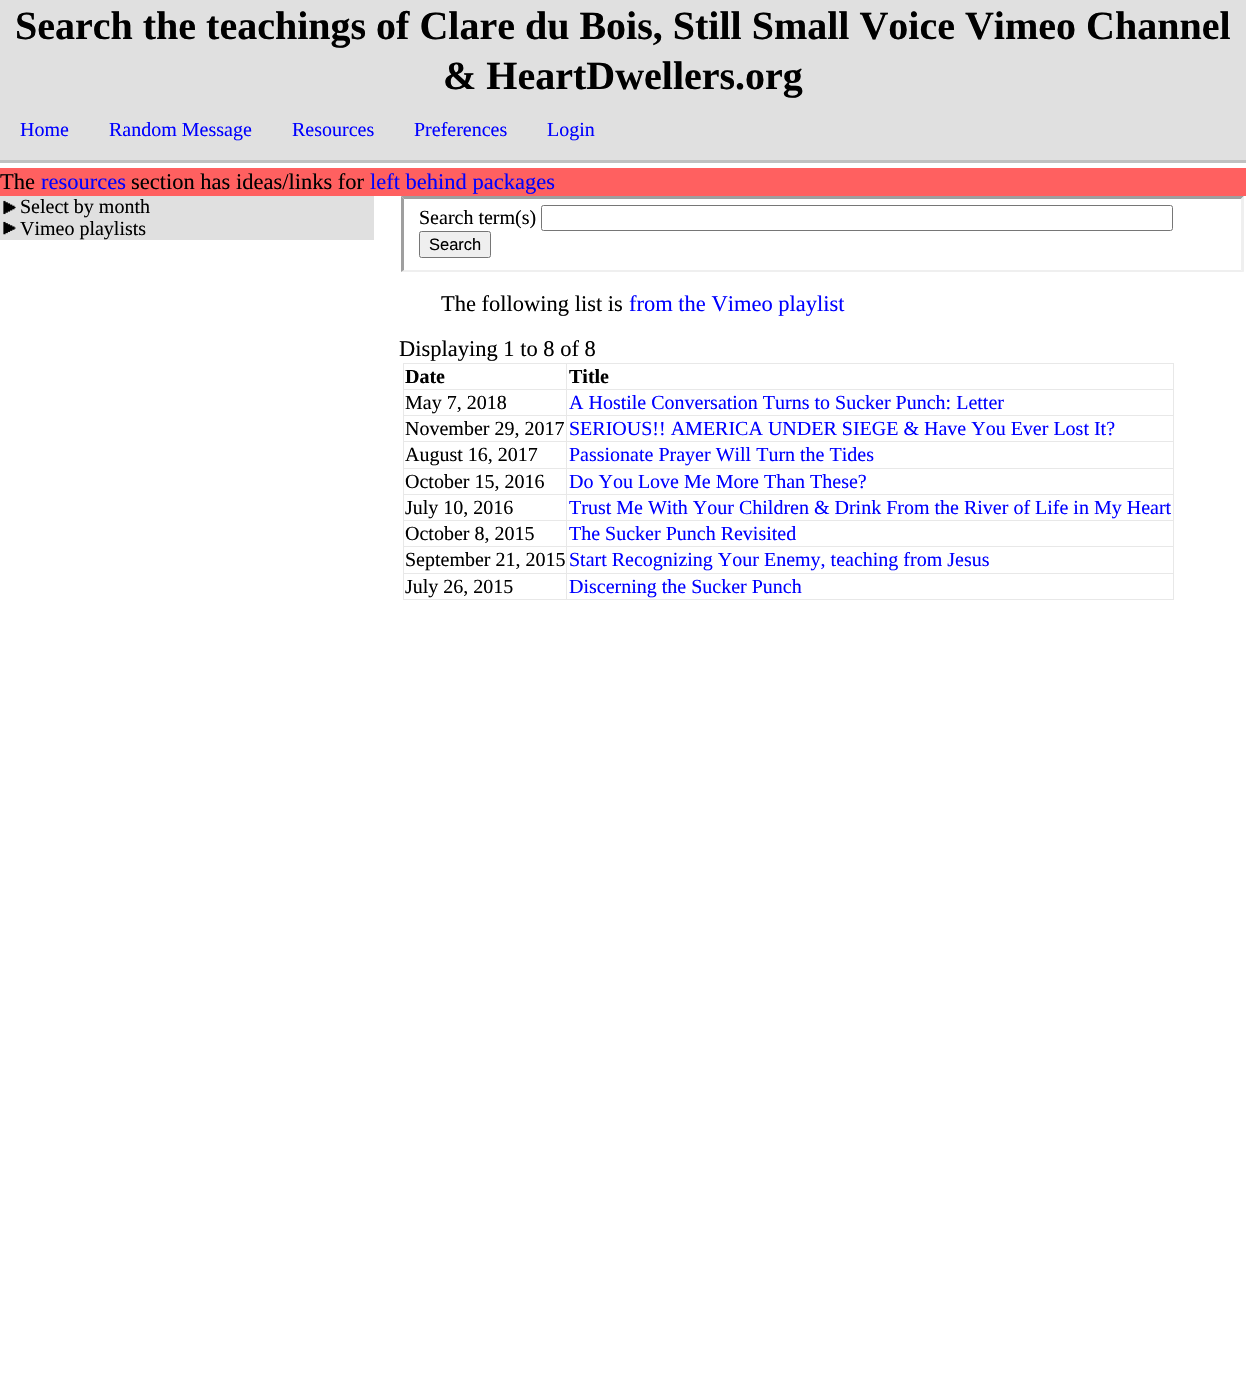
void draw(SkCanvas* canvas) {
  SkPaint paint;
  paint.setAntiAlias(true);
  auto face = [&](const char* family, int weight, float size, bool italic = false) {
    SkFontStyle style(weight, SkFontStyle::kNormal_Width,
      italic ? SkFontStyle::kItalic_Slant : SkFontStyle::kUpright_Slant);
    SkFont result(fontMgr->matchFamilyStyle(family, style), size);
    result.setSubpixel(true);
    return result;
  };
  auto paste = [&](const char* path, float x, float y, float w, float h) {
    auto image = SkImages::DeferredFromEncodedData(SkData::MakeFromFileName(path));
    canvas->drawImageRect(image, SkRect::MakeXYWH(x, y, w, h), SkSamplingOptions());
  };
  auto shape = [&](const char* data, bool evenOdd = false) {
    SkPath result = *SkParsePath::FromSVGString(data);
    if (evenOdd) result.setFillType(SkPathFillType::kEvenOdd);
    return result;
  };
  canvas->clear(0xffffffff);
  {
    const struct { float x, y, w, h; SkColor color; } items[] = {
      {0, 0, 1246, 160, 0xffe0e0e0},
      {0, 160, 1246, 3, 0xffc0c0c0},
      {0, 168, 1246, 28, 0xffff6060},
      {0, 196, 374, 44, 0xffe0e0e0},
    };
    for (auto [x, y, w, h, color] : items) {
      paint.setColor(color);
      canvas->drawRect(SkRect::MakeXYWH(x, y, w, h), paint);
    }
  }
  paste("img/1.png", 3, 200, 13, 15);
  paste("img/2.png", 3, 221, 13, 14);
  paint.setColor(0xff9f9f9f);
  canvas->drawPath(shape("M401 196H1244L1241 199H404Z"), paint);
  paint.setColor(0xffefefef);
  canvas->drawPath(shape("M1244 196V272L1241 270V199Z"), paint);
  canvas->drawPath(shape("M1244 272H401L404 270H1241Z"), paint);
  paint.setColor(0xff9f9f9f);
  canvas->drawPath(shape("M401 272V196L404 199V270Z"), paint);
  paint.setStroke(true);
  paint.setStrokeWidth(1);
  paint.setColor(0xff767676);
  canvas->drawRoundRect(SkRect::MakeXYWH(541.5f, 205.5f, 631, 25), 2, 2, paint);
  paint.setStroke(false);
  paint.setColor(0xffefefef);
  canvas->drawRoundRect(SkRect::MakeXYWH(419.5f, 231.5f, 71, 26), 2, 2, paint);
  paint.setStroke(true);
  paint.setColor(0xff767676);
  canvas->drawRoundRect(SkRect::MakeXYWH(419.5f, 231.5f, 71, 26), 2, 2, paint);
  paint.setStroke(false);
  {
    const struct { float x, y, w, h; SkColor color; } items[] = {
      {403, 363, 771, 1, 0xffe8e8e8},
      {1173, 363, 1, 237, 0xffe8e8e8},
      {403, 599, 771, 1, 0xffe8e8e8},
      {403, 363, 1, 237, 0xffe8e8e8},
      {566, 389, 608, 1, 0xffe8e8e8},
      {566, 415, 608, 1, 0xffe8e8e8},
      {566, 441, 608, 1, 0xffe8e8e8},
      {566, 468, 608, 1, 0xffe8e8e8},
      {566, 494, 608, 1, 0xffe8e8e8},
      {566, 520, 608, 1, 0xffe8e8e8},
      {566, 546, 608, 1, 0xffe8e8e8},
      {566, 573, 608, 1, 0xffe8e8e8},
      {566, 573, 1, 27, 0xffe8e8e8},
      {403, 573, 165, 1, 0xffe8e8e8},
      {566, 546, 1, 28, 0xffe8e8e8},
      {403, 546, 165, 1, 0xffe8e8e8},
      {566, 520, 1, 28, 0xffe8e8e8},
      {403, 520, 165, 1, 0xffe8e8e8},
      {566, 494, 1, 27, 0xffe8e8e8},
      {403, 494, 165, 1, 0xffe8e8e8},
      {566, 468, 1, 27, 0xffe8e8e8},
      {403, 468, 165, 1, 0xffe8e8e8},
      {566, 441, 1, 28, 0xffe8e8e8},
      {403, 441, 165, 1, 0xffe8e8e8},
      {566, 415, 1, 28, 0xffe8e8e8},
      {403, 415, 165, 1, 0xffe8e8e8},
      {566, 389, 1, 27, 0xffe8e8e8},
      {403, 389, 165, 1, 0xffe8e8e8},
      {566, 363, 1, 27, 0xffe8e8e8},
    };
    for (auto [x, y, w, h, color] : items) {
      paint.setColor(color);
      canvas->drawRect(SkRect::MakeXYWH(x, y, w, h), paint);
    }
  }
  auto f0 = face("Liberation Serif", 700, 40);
  paint.setColor(0xff000000);
  canvas->drawString("Search the teachings of Clare du Bois, Still Small Voice Vimeo Channel", 15, 39, f0, paint);
  canvas->drawString("& HeartDwellers.org", 443, 89, f0, paint);
  auto f1 = face("Liberation Serif", 400, 20);
  paint.setColor(0xff0000ff);
  {
    const struct { const char* s; float x, y; } items[] = {
      {"Home", 20, 136},
      {"Random Message", 109, 136},
      {"Resources", 292, 136},
      {"Preferences", 414, 136},
      {"Login", 547, 136},
    };
    for (auto [s, x, y] : items) {
      canvas->drawString(s, x, y, f1, paint);
    }
  }
  auto f2 = face("Liberation Serif", 400, 22.5f);
  paint.setColor(0xff000000);
  canvas->drawString("The", 0, 189, f2, paint);
  paint.setColor(0xff0000ff);
  canvas->drawString("resources", 41, 189, f2, paint);
  paint.setColor(0xff000000);
  canvas->drawString("section has ideas/links for", 131, 189, f2, paint);
  paint.setColor(0xff0000ff);
  canvas->drawString("left behind packages", 370, 189, f2, paint);
  paint.setColor(0xff000000);
  {
    const struct { const char* s; float x, y; } items[] = {
      {"Select by month", 20, 213},
      {"Vimeo playlists", 20, 235},
      {"Search term(s)", 419, 224},
    };
    for (auto [s, x, y] : items) {
      canvas->drawString(s, x, y, f1, paint);
    }
  }
  auto f3 = face("Liberation Sans", 400, 16.5f);
  canvas->drawString("Search", 429, 250, f3, paint);
  canvas->drawString("The following list is", 441, 311, f2, paint);
  paint.setColor(0xff0000ff);
  canvas->drawString("from the Vimeo playlist", 629, 311, f2, paint);
  paint.setColor(0xff000000);
  canvas->drawString("Displaying 1 to 8 of 8", 399, 356, f2, paint);
  auto f4 = face("Liberation Serif", 700, 20);
  canvas->drawString("Date", 405, 383, f4, paint);
  canvas->drawString("Title", 569, 383, f4, paint);
  canvas->drawString("May 7, 2018", 405, 409, f1, paint);
  paint.setColor(0xff0000ff);
  canvas->drawString("A Hostile Conversation Turns to Sucker Punch: Letter", 569, 409, f1, paint);
  paint.setColor(0xff000000);
  canvas->drawString("November 29, 2017", 405, 435, f1, paint);
  paint.setColor(0xff0000ff);
  canvas->drawString("SERIOUS!! AMERICA UNDER SIEGE & Have You Ever Lost It?", 569, 435, f1, paint);
  paint.setColor(0xff000000);
  canvas->drawString("August 16, 2017", 405, 461, f1, paint);
  paint.setColor(0xff0000ff);
  canvas->drawString("Passionate Prayer Will Turn the Tides", 569, 461, f1, paint);
  paint.setColor(0xff000000);
  canvas->drawString("October 15, 2016", 405, 488, f1, paint);
  paint.setColor(0xff0000ff);
  canvas->drawString("Do You Love Me More Than These?", 569, 488, f1, paint);
  paint.setColor(0xff000000);
  canvas->drawString("July 10, 2016", 405, 514, f1, paint);
  paint.setColor(0xff0000ff);
  canvas->drawString("Trust Me With Your Children & Drink From the River of Life in My Heart", 569, 514, f1, paint);
  paint.setColor(0xff000000);
  canvas->drawString("October 8, 2015", 405, 540, f1, paint);
  paint.setColor(0xff0000ff);
  canvas->drawString("The Sucker Punch Revisited", 569, 540, f1, paint);
  paint.setColor(0xff000000);
  canvas->drawString("September 21, 2015", 405, 566, f1, paint);
  paint.setColor(0xff0000ff);
  canvas->drawString("Start Recognizing Your Enemy, teaching from Jesus", 569, 566, f1, paint);
  paint.setColor(0xff000000);
  canvas->drawString("July 26, 2015", 405, 593, f1, paint);
  paint.setColor(0xff0000ff);
  canvas->drawString("Discerning the Sucker Punch", 569, 593, f1, paint);
}
